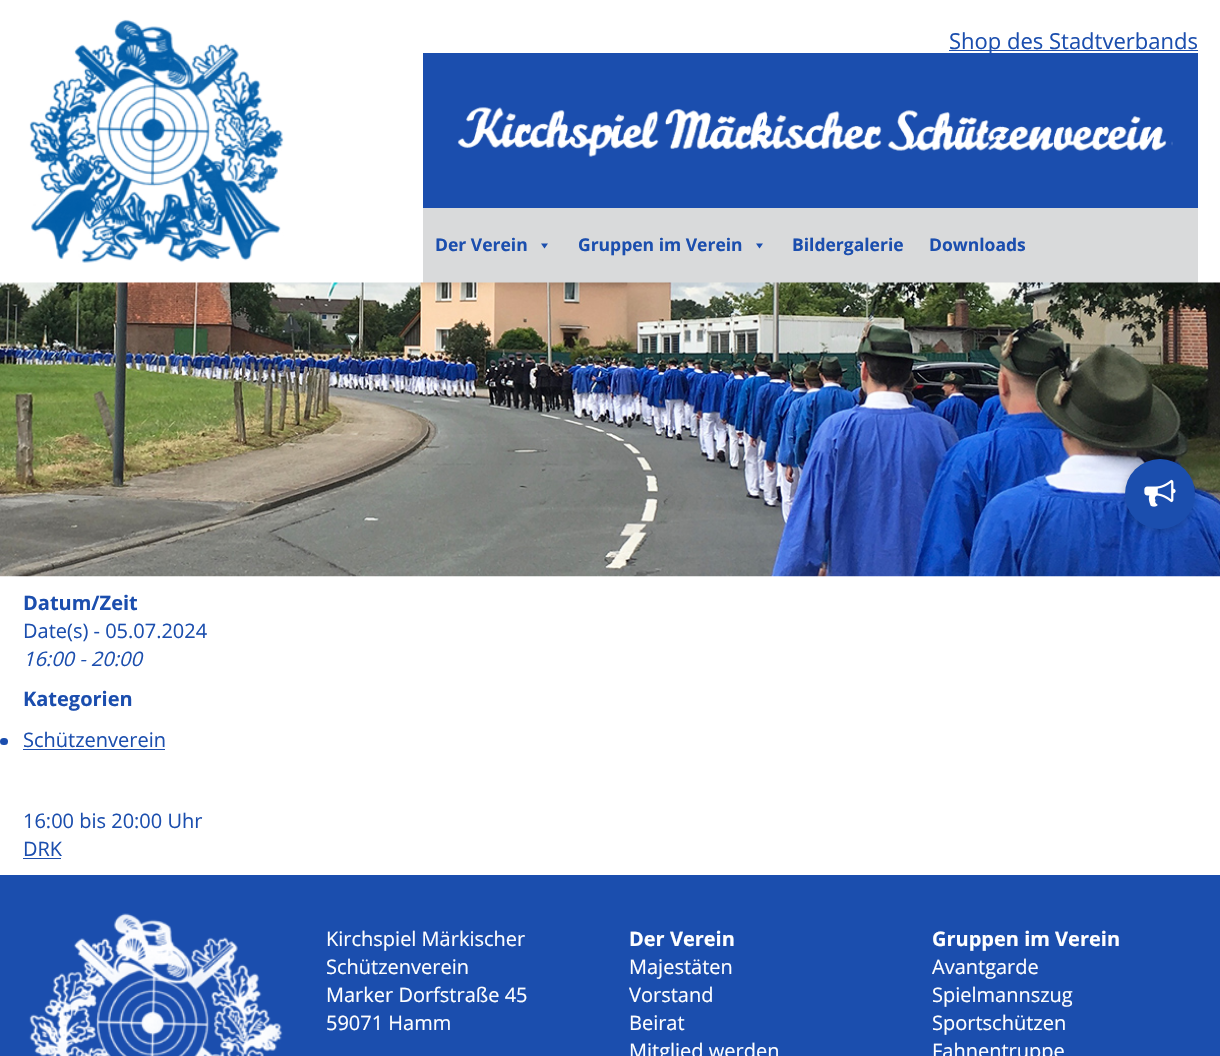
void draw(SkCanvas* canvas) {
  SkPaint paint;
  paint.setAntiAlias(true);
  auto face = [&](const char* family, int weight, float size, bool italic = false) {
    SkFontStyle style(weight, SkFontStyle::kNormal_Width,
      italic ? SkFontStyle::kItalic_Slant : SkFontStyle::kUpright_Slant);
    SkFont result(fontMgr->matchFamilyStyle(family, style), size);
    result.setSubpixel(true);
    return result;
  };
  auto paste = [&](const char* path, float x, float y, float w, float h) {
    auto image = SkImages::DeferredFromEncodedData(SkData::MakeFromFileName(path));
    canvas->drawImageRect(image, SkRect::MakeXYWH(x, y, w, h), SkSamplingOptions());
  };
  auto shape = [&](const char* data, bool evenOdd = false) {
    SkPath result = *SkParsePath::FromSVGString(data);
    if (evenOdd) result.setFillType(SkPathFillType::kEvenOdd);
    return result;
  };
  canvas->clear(0xffffffff);
  paste("img/1.png", 29, 19, 255, 244);
  paint.setColor(0xff1b4eae);
  canvas->drawRect(SkRect::MakeXYWH(949, 50, 249, 1), paint);
  canvas->drawRect(SkRect::MakeXYWH(423, 53, 775, 155), paint);
  paste("img/2.png", 457, 107, 716, 50);
  paint.setColor(0xffd9dadb);
  canvas->drawRect(SkRect::MakeXYWH(423, 208, 775, 75), paint);
  paint.setColor(0xff1b4eae);
  canvas->drawPath(shape("M548 243.5L544.5 248.5L541 243.5Z"), paint);
  canvas->drawPath(shape("M763 243.5L759.5 248.5L756 243.5Z"), paint);
  paste("img/4.png", 0, 282, 1220, 295);
  paint.setColor(0x33000000);
  paint.setMaskFilter(SkMaskFilter::MakeBlur(kNormal_SkBlurStyle, 4));
  canvas->drawRoundRect(SkRect::MakeXYWH(1124, 460, 72, 73), 36, 36, paint);
  paint.setMaskFilter(nullptr);
  paint.setColor(0xff1b4eae);
  canvas->drawCircle(1160, 494, 35, paint);
  paste("img/3.png", 1144, 479, 32, 28);
  canvas->drawRoundRect(SkRect::MakeXYWH(0, 738, 8, 7), 3.5f, 3.5f, paint);
  {
    const struct { float x, y, w, h; SkColor color; } items[] = {
      {23, 749, 142, 1, 0xff1b4eae},
      {23, 858, 38, 1, 0xff1b4eae},
      {0, 875, 1220, 181, 0xff1b4eae},
    };
    for (auto [x, y, w, h, color] : items) {
      paint.setColor(color);
      canvas->drawRect(SkRect::MakeXYWH(x, y, w, h), paint);
    }
  }
  paste("img/5.png", 29, 913, 254, 143);
  auto f0 = face("Open Sans", 400, 22);
  canvas->drawString("Shop des Stadtverbands", 949, 49, f0, paint);
  auto f1 = face("Open Sans", 700, 17.5f);
  {
    const struct { const char* s; float x, y; } items[] = {
      {"Der Verein", 435, 251},
      {"Gruppen im Verein", 578, 251},
      {"Bildergalerie", 792, 251},
      {"Downloads", 929, 251},
    };
    for (auto [s, x, y] : items) {
      canvas->drawString(s, x, y, f1, paint);
    }
  }
  auto f2 = face("Open Sans", 700, 20);
  canvas->drawString("Datum/Zeit", 23, 610, f2, paint);
  auto f3 = face("Open Sans", 400, 20);
  canvas->drawString("Date(s) - 05.07.2024", 23, 638, f3, paint);
  auto f4 = face("Open Sans", 400, 20, true);
  canvas->drawString("16:00 - 20:00", 23, 666, f4, paint);
  canvas->drawString("Kategorien", 23, 706, f2, paint);
  {
    const struct { const char* s; float x, y; } items[] = {
      {"Schützenverein", 23, 747},
      {"16:00 bis 20:00 Uhr", 23, 828},
      {"DRK", 23, 856},
    };
    for (auto [s, x, y] : items) {
      canvas->drawString(s, x, y, f3, paint);
    }
  }
  paint.setColor(0xffffffff);
  {
    const struct { const char* s; float x, y; } items[] = {
      {"Kirchspiel Märkischer", 326, 946},
      {"Schützenverein", 326, 974},
      {"Marker Dorfstraße 45", 326, 1002},
      {"59071 Hamm", 326, 1030},
    };
    for (auto [s, x, y] : items) {
      canvas->drawString(s, x, y, f3, paint);
    }
  }
  canvas->drawString("Der Verein", 629, 946, f2, paint);
  {
    const struct { const char* s; float x, y; } items[] = {
      {"Majestäten", 629, 974},
      {"Vorstand", 629, 1002},
      {"Beirat", 629, 1030},
      {"Mitglied werden", 629, 1058},
    };
    for (auto [s, x, y] : items) {
      canvas->drawString(s, x, y, f3, paint);
    }
  }
  canvas->drawString("Gruppen im Verein", 932, 946, f2, paint);
  {
    const struct { const char* s; float x, y; } items[] = {
      {"Avantgarde", 932, 974},
      {"Spielmannszug", 932, 1002},
      {"Sportschützen", 932, 1030},
      {"Fahnentruppe", 932, 1058},
    };
    for (auto [s, x, y] : items) {
      canvas->drawString(s, x, y, f3, paint);
    }
  }
}
